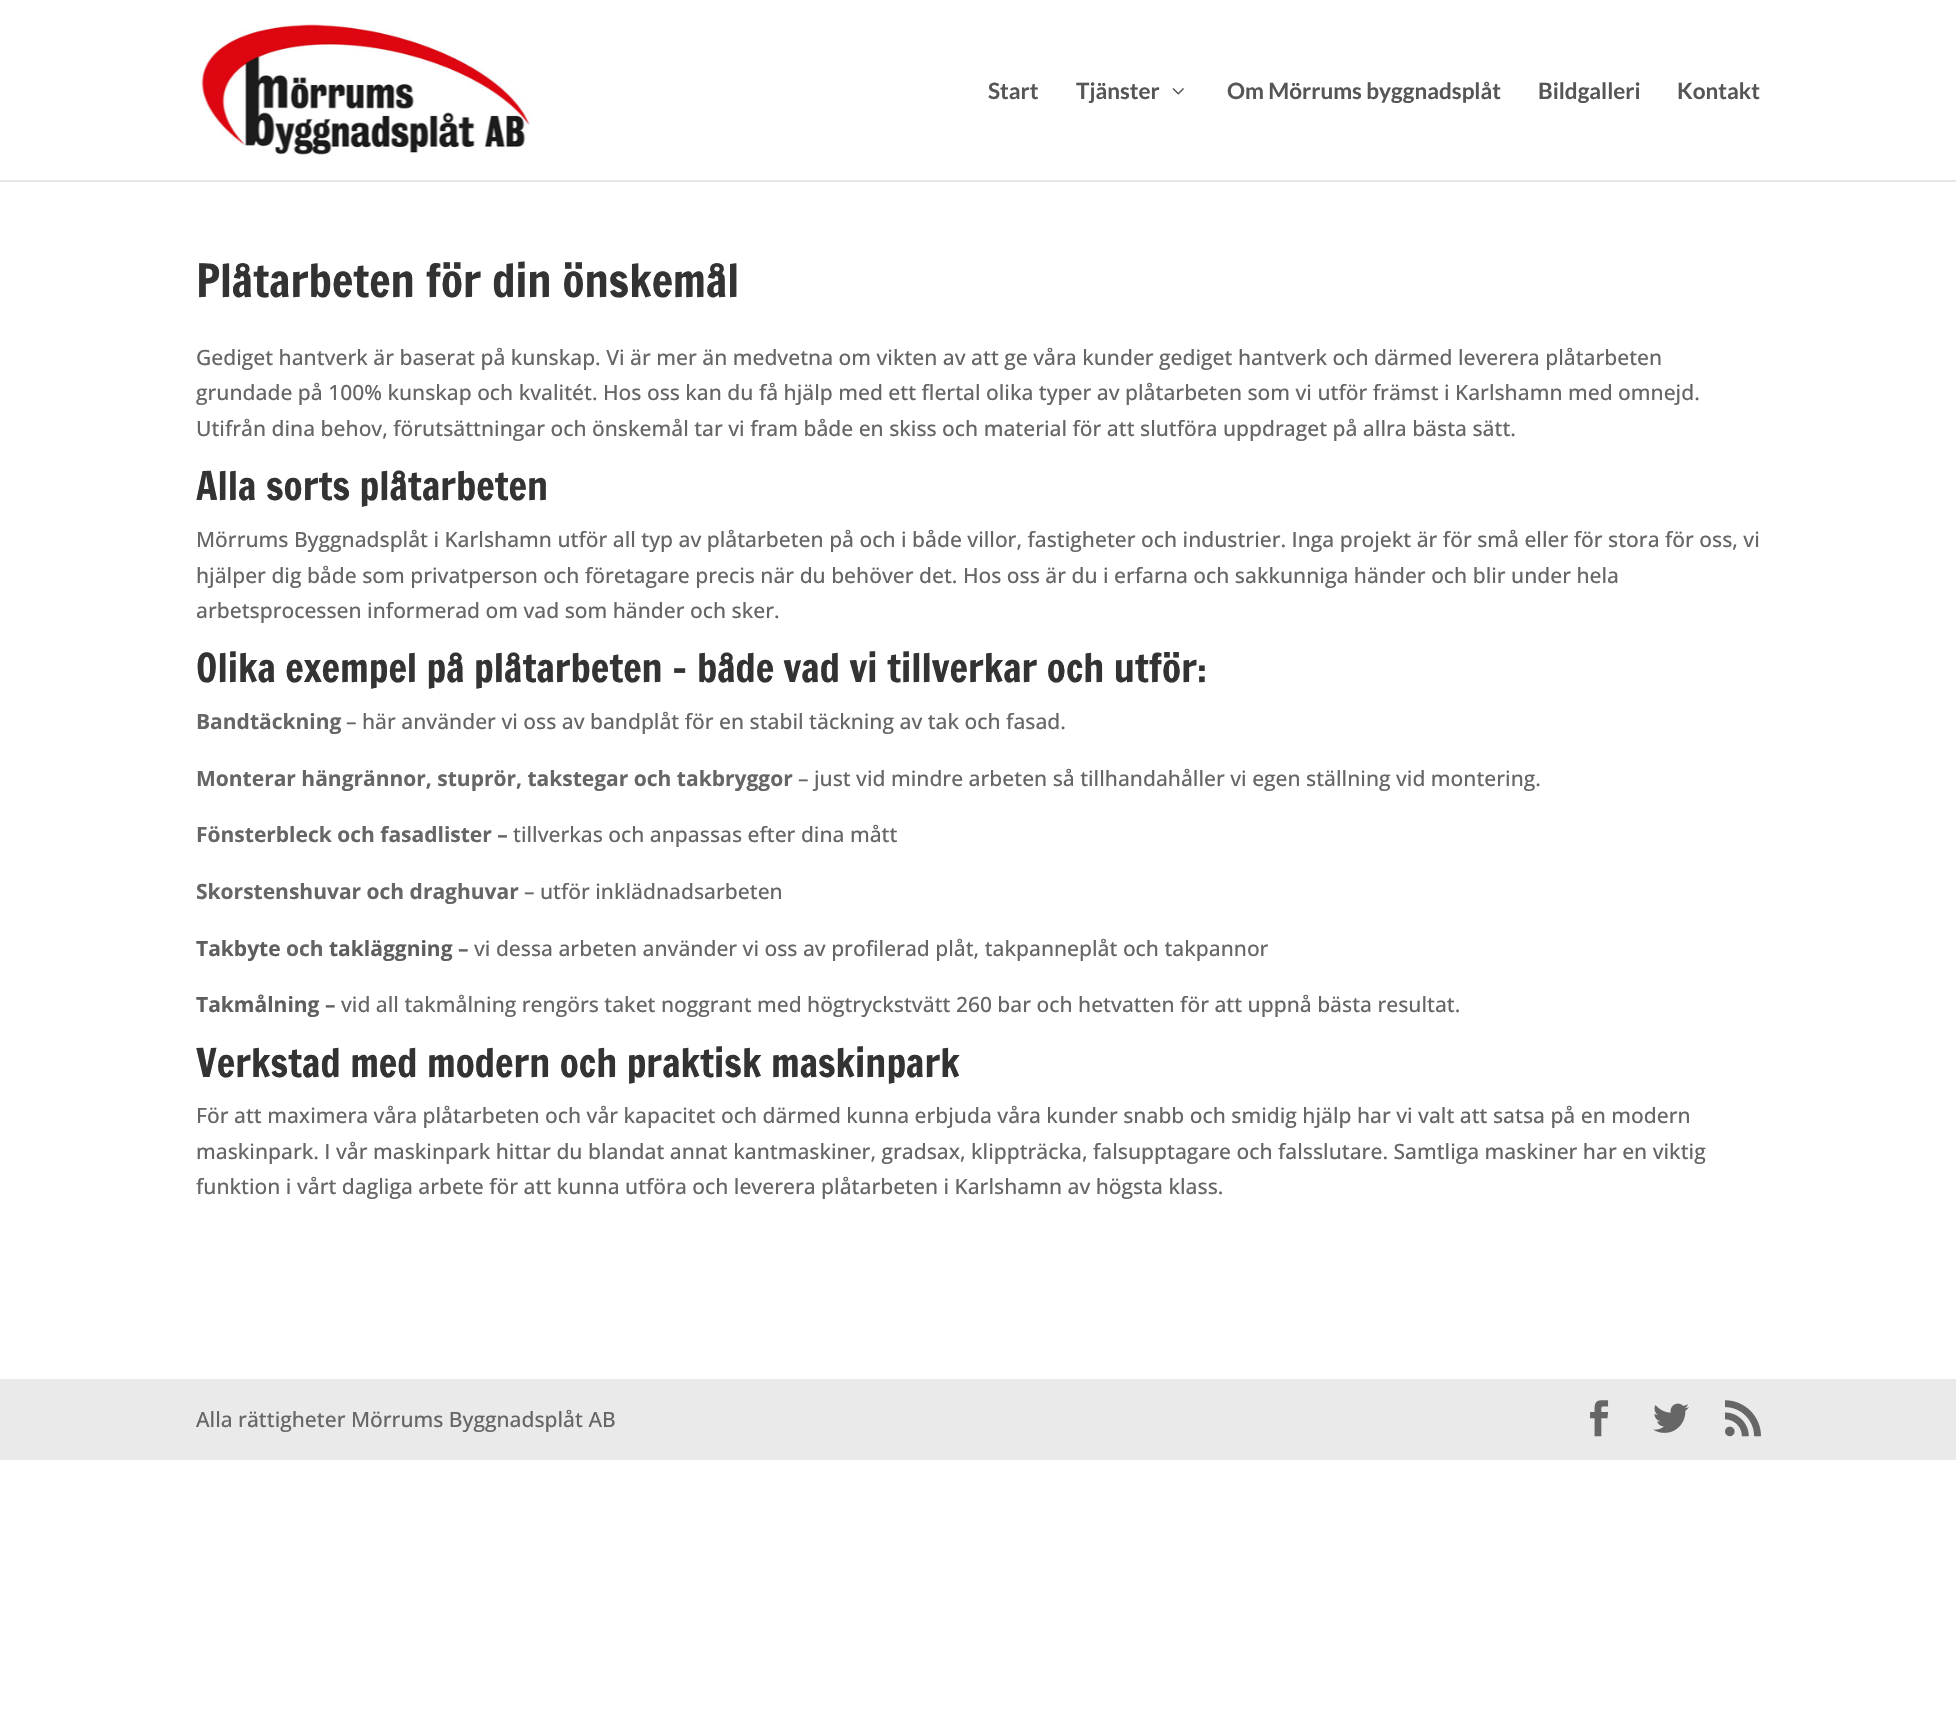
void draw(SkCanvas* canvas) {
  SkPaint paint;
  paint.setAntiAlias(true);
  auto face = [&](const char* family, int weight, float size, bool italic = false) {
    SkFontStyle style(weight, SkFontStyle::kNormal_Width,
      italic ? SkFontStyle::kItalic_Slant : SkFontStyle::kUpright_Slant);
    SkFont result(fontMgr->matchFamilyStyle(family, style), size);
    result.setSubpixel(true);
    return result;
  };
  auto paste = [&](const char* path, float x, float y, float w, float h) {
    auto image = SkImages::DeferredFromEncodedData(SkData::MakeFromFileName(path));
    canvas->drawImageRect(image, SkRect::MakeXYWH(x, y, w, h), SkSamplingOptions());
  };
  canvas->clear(0xffffffff);
  paint.setColor(0xffe6e6e6);
  canvas->drawRect(SkRect::MakeXYWH(0, 180, 1956, 2), paint);
  paste("img/1.png", 200, 24, 330, 131);
  paste("img/2.png", 1172, 88, 12, 7);
  paint.setColor(0xffeaeaea);
  canvas->drawRect(SkRect::MakeXYWH(0, 1379, 1956, 81), paint);
  paste("img/3.png", 1590, 1400, 19, 37);
  paste("img/4.png", 1653, 1403, 36, 30);
  paste("img/5.png", 1725, 1400, 36, 37);
  auto f0 = face("Lato", 700, 22.5f);
  paint.setColor(0xff565656);
  {
    const struct { const char* s; float x, y; } items[] = {
      {"Start", 988, 99},
      {"Tjänster", 1076, 99},
      {"Om Mörrums byggnadsplåt", 1227, 99},
      {"Bildgalleri", 1538, 99},
      {"Kontakt", 1677, 99},
    };
    for (auto [s, x, y] : items) {
      canvas->drawString(s, x, y, f0, paint);
    }
  }
  auto f1 = face("Francois One", 400, 45);
  paint.setColor(0xff333333);
  canvas->drawString("Plåtarbeten för din önskemål", 196, 297, f1, paint);
  auto f2 = face("Open Sans", 500, 21);
  paint.setColor(0xff666666);
  {
    const struct { const char* s; float x, y; } items[] = {
      {"Gediget hantverk är baserat på kunskap. Vi är mer än medvetna om vikten av att ge våra kunder gediget hantverk och därmed leverera plåtarbeten", 196, 365},
      {"grundade på 100% kunskap och kvalitét. Hos oss kan du få hjälp med ett flertal olika typer av plåtarbeten som vi utför främst i Karlshamn med omnejd.", 196, 400},
      {"Utifrån dina behov, förutsättningar och önskemål tar vi fram både en skiss och material för att slutföra uppdraget på allra bästa sätt.", 196, 436},
    };
    for (auto [s, x, y] : items) {
      canvas->drawString(s, x, y, f2, paint);
    }
  }
  auto f3 = face("Francois One", 400, 39);
  paint.setColor(0xff333333);
  canvas->drawString("Alla sorts plåtarbeten", 196, 500, f3, paint);
  paint.setColor(0xff666666);
  {
    const struct { const char* s; float x, y; } items[] = {
      {"Mörrums Byggnadsplåt i Karlshamn utför all typ av plåtarbeten på och i både villor, fastigheter och industrier. Inga projekt är för små eller för stora för oss, vi", 196, 547},
      {"hjälper dig både som privatperson och företagare precis när du behöver det. Hos oss är du i erfarna och sakkunniga händer och blir under hela", 196, 583},
      {"arbetsprocessen informerad om vad som händer och sker.", 196, 618},
    };
    for (auto [s, x, y] : items) {
      canvas->drawString(s, x, y, f2, paint);
    }
  }
  paint.setColor(0xff333333);
  canvas->drawString("Olika exempel på plåtarbeten – både vad vi tillverkar och utför:", 196, 682, f3, paint);
  auto f4 = face("Open Sans", 700, 21);
  paint.setColor(0xff666666);
  canvas->drawString("Bandtäckning", 196, 729, f4, paint);
  canvas->drawString("– här använder vi oss av bandplåt för en stabil täckning av tak och fasad.", 346, 729, f2, paint);
  canvas->drawString("Monterar hängrännor, stuprör, takstegar och takbryggor", 196, 786, f4, paint);
  canvas->drawString("– just vid mindre arbeten så tillhandahåller vi egen ställning vid montering.", 798, 786, f2, paint);
  canvas->drawString("Fönsterbleck och fasadlister –", 196, 842, f4, paint);
  canvas->drawString("tillverkas och anpassas efter dina mått", 513, 842, f2, paint);
  canvas->drawString("Skorstenshuvar och draghuvar", 196, 899, f4, paint);
  canvas->drawString("– utför inklädnadsarbeten", 524, 899, f2, paint);
  paint.setColor(0xff5e5e5e);
  canvas->drawString("Takbyte", 196, 956, f4, paint);
  paint.setColor(0xff666666);
  canvas->drawString("och", 286, 956, f4, paint);
  paint.setColor(0xff5e5e5e);
  canvas->drawString("takläggning", 329, 956, f4, paint);
  paint.setColor(0xff666666);
  canvas->drawString("–", 458, 956, f4, paint);
  canvas->drawString("vi dessa arbeten använder vi oss av profilerad plåt, takpanneplåt och takpannor", 474, 956, f2, paint);
  paint.setColor(0xff5e5e5e);
  canvas->drawString("Takmålning", 196, 1012, f4, paint);
  paint.setColor(0xff666666);
  canvas->drawString("–", 325, 1012, f4, paint);
  canvas->drawString("vid all takmålning rengörs taket noggrant med högtryckstvätt 260 bar och hetvatten för att uppnå bästa resultat.", 341, 1012, f2, paint);
  paint.setColor(0xff333333);
  canvas->drawString("Verkstad med modern och praktisk maskinpark", 196, 1077, f3, paint);
  paint.setColor(0xff666666);
  {
    const struct { const char* s; float x, y; } items[] = {
      {"För att maximera våra plåtarbeten och vår kapacitet och därmed kunna erbjuda våra kunder snabb och smidig hjälp har vi valt att satsa på en modern", 196, 1123},
      {"maskinpark. I vår maskinpark hittar du blandat annat kantmaskiner, gradsax, klippträcka, falsupptagare och falsslutare. Samtliga maskiner har en viktig", 196, 1159},
      {"funktion i vårt dagliga arbete för att kunna utföra och leverera plåtarbeten i Karlshamn av högsta klass.", 196, 1194},
      {"Alla rättigheter Mörrums Byggnadsplåt AB", 196, 1427},
    };
    for (auto [s, x, y] : items) {
      canvas->drawString(s, x, y, f2, paint);
    }
  }
}
